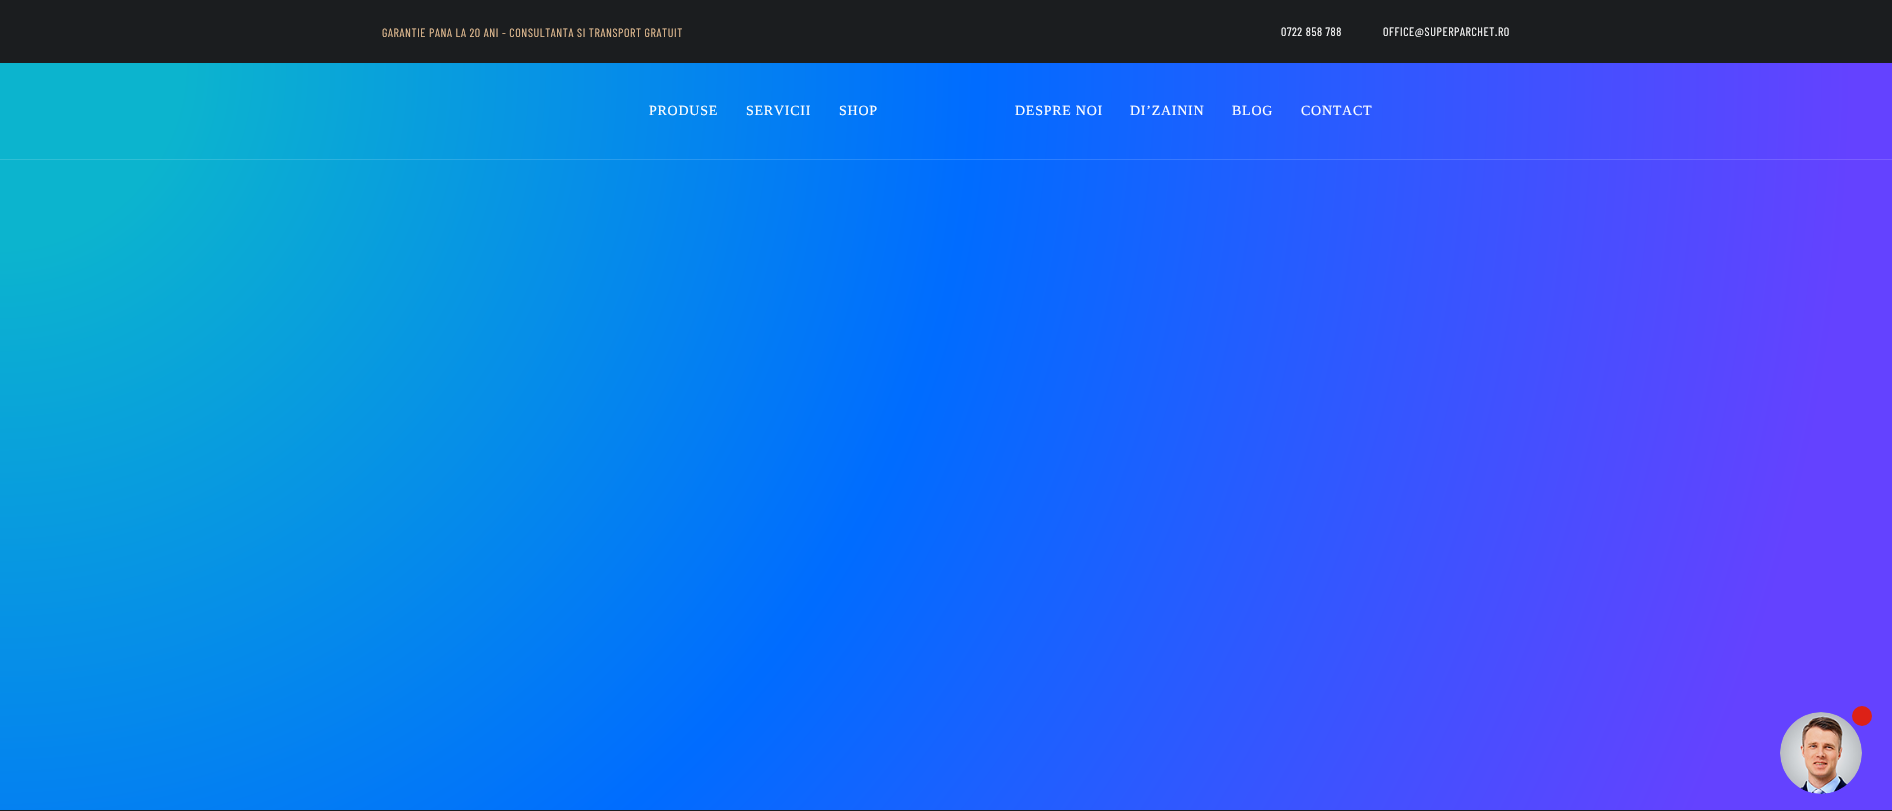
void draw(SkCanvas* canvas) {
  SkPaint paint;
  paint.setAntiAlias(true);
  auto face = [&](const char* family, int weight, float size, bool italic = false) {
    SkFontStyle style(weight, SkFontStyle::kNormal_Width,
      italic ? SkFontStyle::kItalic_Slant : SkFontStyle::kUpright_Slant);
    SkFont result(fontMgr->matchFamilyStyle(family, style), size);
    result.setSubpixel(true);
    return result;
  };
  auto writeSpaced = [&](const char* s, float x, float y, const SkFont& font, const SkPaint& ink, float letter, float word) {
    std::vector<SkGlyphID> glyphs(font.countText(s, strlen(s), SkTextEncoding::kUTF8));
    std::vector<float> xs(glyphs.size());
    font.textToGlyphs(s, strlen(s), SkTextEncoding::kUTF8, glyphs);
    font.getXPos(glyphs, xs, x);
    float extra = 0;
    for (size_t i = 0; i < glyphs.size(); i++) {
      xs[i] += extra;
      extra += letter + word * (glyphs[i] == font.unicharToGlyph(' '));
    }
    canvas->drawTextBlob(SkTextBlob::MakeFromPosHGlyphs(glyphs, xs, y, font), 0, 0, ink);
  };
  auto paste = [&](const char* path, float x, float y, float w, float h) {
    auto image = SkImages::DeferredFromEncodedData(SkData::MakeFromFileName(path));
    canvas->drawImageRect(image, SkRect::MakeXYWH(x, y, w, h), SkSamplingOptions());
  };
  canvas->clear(0xffffffff);
  paint.setColor(0xff1b1d1f);
  canvas->drawRect(SkRect::MakeXYWH(0, 0, 1892, 63), paint);
  {
    const SkColor colors[] = {0xff0cb4ce, 0xff006cff, 0xff6442ff};
    const float stops[] = {0.09f, 0.48f, 0.91f};
    paint.setShader(SkGradientShader::MakeRadial({-2, 63}, 2038, colors, stops, 3, SkTileMode::kClamp));
    paint.setAlpha(255);
  }
  canvas->drawRect(SkRect::MakeXYWH(0, 63, 1892, 747), paint);
  {
    const SkColor colors[] = {0xff30bfd5, 0xff2682ff, 0xff7b5eff};
    const float stops[] = {0.09f, 0.48f, 0.91f};
    paint.setShader(SkGradientShader::MakeRadial({-2, 63}, 2038, colors, stops, 3, SkTileMode::kClamp));
    paint.setAlpha(255);
  }
  canvas->drawRect(SkRect::MakeXYWH(0, 159, 1892, 1), paint);
  paint.setShader(nullptr);
  paint.setColor(0xff1b1d1f);
  canvas->drawRect(SkRect::MakeXYWH(0, 810, 1892, 1), paint);
  paste("img/1.png", 1780, 712, 82, 82);
  paint.setColor(0xffdd2117);
  canvas->drawCircle(1862, 716, 10, paint);
  auto f0 = face("Barlow Condensed", 400, 12);
  paint.setColor(0xffe5be93);
  writeSpaced("GARANTIE PANA LA 20 ANI - CONSULTANTA SI TRANSPORT GRATUIT", 382, 37, f0, paint, 0.6f, 0);
  paint.setColor(0xffffffff);
  writeSpaced("0722 858 788", 1281, 36, f0, paint, 0.6f, 0);
  writeSpaced("OFFICE@SUPERPARCHET.RO", 1383, 36, f0, paint, 0.6f, 0);
  auto f1 = face("Liberation Serif", 400, 14);
  {
    const struct { const char* s; float x, y; } items[] = {
      {"PRODUSE", 649, 115},
      {"SERVICII", 746, 115},
      {"SHOP", 839, 115},
      {"DESPRE NOI", 1015, 115},
      {"DI’ZAININ", 1130, 115},
      {"BLOG", 1232, 115},
      {"CONTACT", 1301, 115},
    };
    for (auto [s, x, y] : items) {
      writeSpaced(s, x, y, f1, paint, 0.75f, 0);
    }
  }
}
